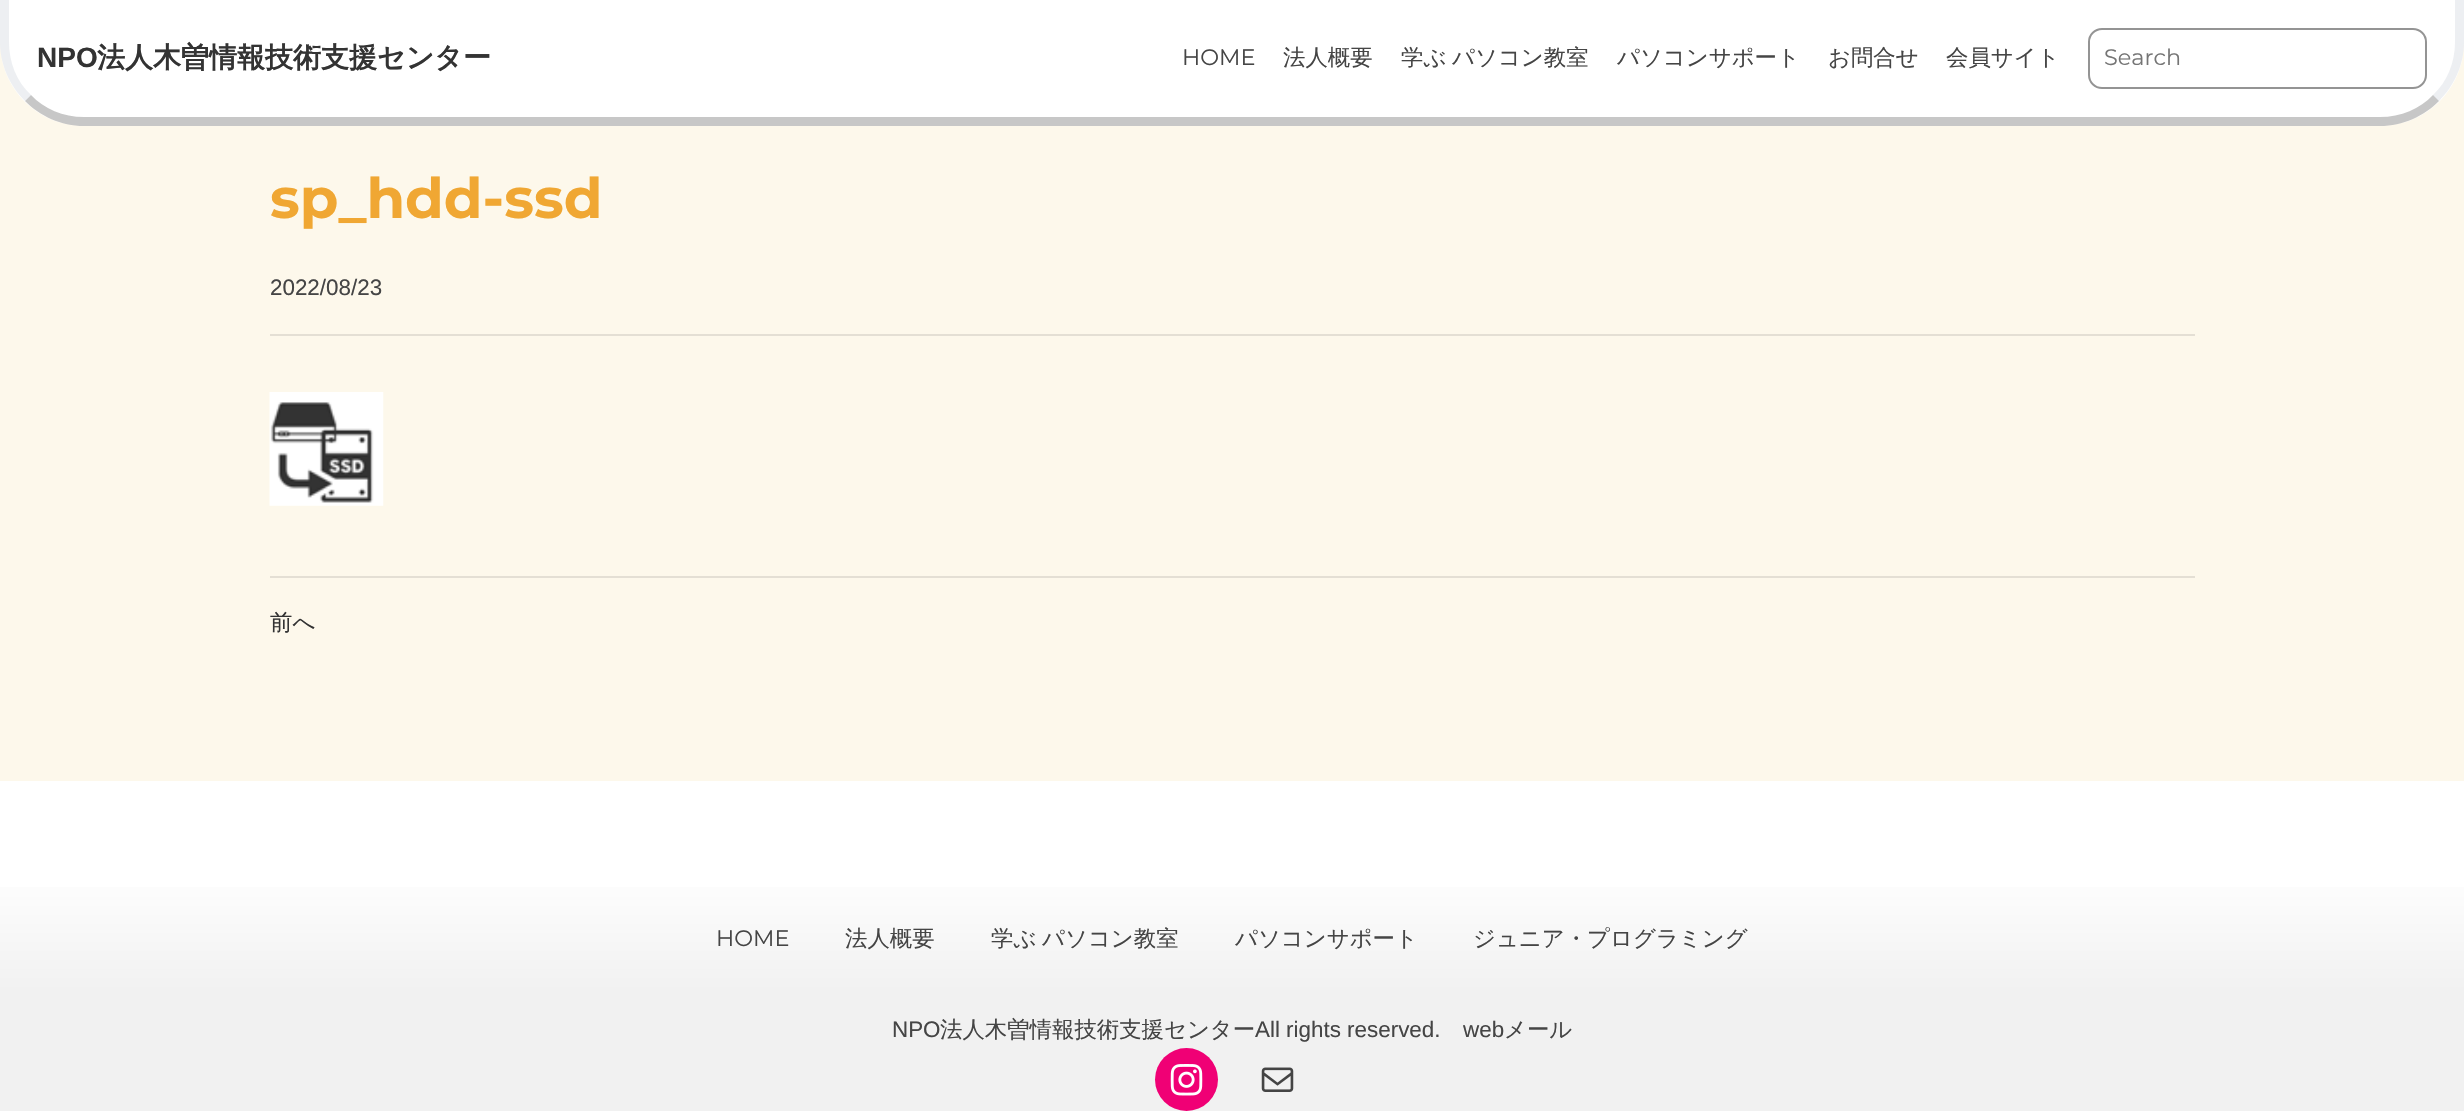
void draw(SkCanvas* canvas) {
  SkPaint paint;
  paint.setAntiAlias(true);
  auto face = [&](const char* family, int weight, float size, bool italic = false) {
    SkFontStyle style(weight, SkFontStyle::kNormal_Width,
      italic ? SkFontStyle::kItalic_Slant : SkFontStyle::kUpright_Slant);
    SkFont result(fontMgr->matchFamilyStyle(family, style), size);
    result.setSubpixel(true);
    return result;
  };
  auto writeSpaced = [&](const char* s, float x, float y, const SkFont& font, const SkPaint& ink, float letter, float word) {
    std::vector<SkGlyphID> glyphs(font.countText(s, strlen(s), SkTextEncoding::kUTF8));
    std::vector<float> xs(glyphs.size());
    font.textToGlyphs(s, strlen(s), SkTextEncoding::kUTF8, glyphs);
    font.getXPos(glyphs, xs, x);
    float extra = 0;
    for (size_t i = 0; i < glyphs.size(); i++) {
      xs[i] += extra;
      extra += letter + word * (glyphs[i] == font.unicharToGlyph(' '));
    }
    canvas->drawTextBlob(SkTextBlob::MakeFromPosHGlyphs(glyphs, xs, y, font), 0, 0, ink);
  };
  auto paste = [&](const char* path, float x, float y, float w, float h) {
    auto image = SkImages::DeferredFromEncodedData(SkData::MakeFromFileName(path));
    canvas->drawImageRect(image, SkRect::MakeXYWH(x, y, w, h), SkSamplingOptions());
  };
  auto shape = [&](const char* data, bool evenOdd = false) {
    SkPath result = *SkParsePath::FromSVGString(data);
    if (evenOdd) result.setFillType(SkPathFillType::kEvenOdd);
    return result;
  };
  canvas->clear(0xffffffff);
  paste("img/1.png", 0, 42, 2464, 739);
  paint.setColor(0xffffffff);
  canvas->drawPath(shape("M0 0H2464V42C2464 88.5 2426.5 126 2380 126H84C37.5 126 0 88.5 0 42Z"), paint);
  paint.setColor(0x38abb7c2);
  canvas->drawPath(shape("M2464 0H2455V42C2455 63 2447 82 2433 95L2439 101C2454 86 2464 65 2464 42Z"), paint);
  paint.setColor(0x38000000);
  canvas->drawPath(shape("M84 126H2380C2403 126 2424 116 2439 101L2433 95C2420 109 2401 117 2380 117H84C63 117 44 109 31 95L25 101C40 116 61 126 84 126Z"), paint);
  paint.setColor(0x38abb7c2);
  canvas->drawPath(shape("M0 0H9V42C9 63 17 82 31 95L25 101C10 86 0 65 0 42Z"), paint);
  paint.setStroke(true);
  paint.setStrokeWidth(2);
  paint.setColor(0xff949494);
  canvas->drawRoundRect(SkRect::MakeXYWH(2089, 29, 337, 59), 13, 13, paint);
  paint.setStroke(false);
  paint.setColor(0xffe4dfd4);
  canvas->drawRect(SkRect::MakeXYWH(270, 334, 1925, 2), paint);
  paste("img/2.png", 269, 392, 115, 114);
  canvas->drawRect(SkRect::MakeXYWH(270, 576, 1925, 2), paint);
  {
    const SkColor colors[] = {0xffffffff, 0xfff1f1f1};
    const float stops[] = {0.18f, 0.45f};
    const SkPoint ends[] = {{1232, 780}, {1232, 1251}};
    paint.setShader(SkGradientShader::MakeLinear(ends, colors, stops, 2, SkTileMode::kClamp));
    paint.setAlpha(255);
  }
  canvas->drawRect(SkRect::MakeXYWH(0, 887, 2464, 224), paint);
  paint.setShader(nullptr);
  paint.setColor(0xfff00075);
  canvas->drawCircle(1186.5f, 1079.5f, 31.5f, paint);
  paste("img/3.png", 1170, 1064, 33, 32);
  paste("img/4.png", 1261, 1067, 33, 25);
  auto f0 = face("Liberation Sans", 700, 28);
  paint.setColor(0xff333333);
  canvas->drawString("NPO", 37, 67, f0, paint);
  auto f1 = face("WenQuanYi Zen Hei", 700, 28);
  canvas->drawString("法人木曽情報技術支援センター", 97, 67, f1, paint);
  auto f2 = face("Montserrat", 400, 22.4f);
  paint.setColor(0xff454545);
  canvas->drawString("HOME", 1182, 65, f2, paint);
  auto f3 = face("WenQuanYi Zen Hei", 500, 22.4f);
  canvas->drawString("法人概要", 1283, 65, f3, paint);
  writeSpaced("学ぶ パソコン教室", 1401, 65, f3, paint, 0, -1);
  {
    const struct { const char* s; float x, y; } items[] = {
      {"パソコンサポート", 1617, 65},
      {"お問合せ", 1828, 65},
      {"会員サイト", 1946, 65},
    };
    for (auto [s, x, y] : items) {
      canvas->drawString(s, x, y, f3, paint);
    }
  }
  paint.setColor(0xff757575);
  canvas->drawString("Search", 2104, 65, f2, paint);
  auto f4 = face("Montserrat", 700, 56);
  paint.setColor(0xfff0a733);
  canvas->drawString("sp_hdd-ssd", 270, 218, f4, paint);
  auto f5 = face("Liberation Sans", 400, 22.4f);
  paint.setColor(0xff454545);
  canvas->drawString("2022/08/23", 270, 295, f5, paint);
  paint.setColor(0xff333333);
  canvas->drawString("前へ", 270, 630, f3, paint);
  paint.setColor(0xff454545);
  canvas->drawString("HOME", 716, 946, f2, paint);
  canvas->drawString("法人概要", 845, 946, f3, paint);
  writeSpaced("学ぶ パソコン教室", 991, 946, f3, paint, 0, -1);
  canvas->drawString("パソコンサポート", 1235, 946, f3, paint);
  canvas->drawString("ジュニア・プログラミング", 1473, 946, f3, paint);
  canvas->drawString("NPO", 892, 1037, f5, paint);
  canvas->drawString("法人木曽情報技術支援センター", 940, 1037, f3, paint);
  canvas->drawString("All rights reserved.", 1255, 1037, f5, paint);
  canvas->drawString("web", 1463, 1037, f5, paint);
  canvas->drawString("メール", 1504, 1037, f3, paint);
}
